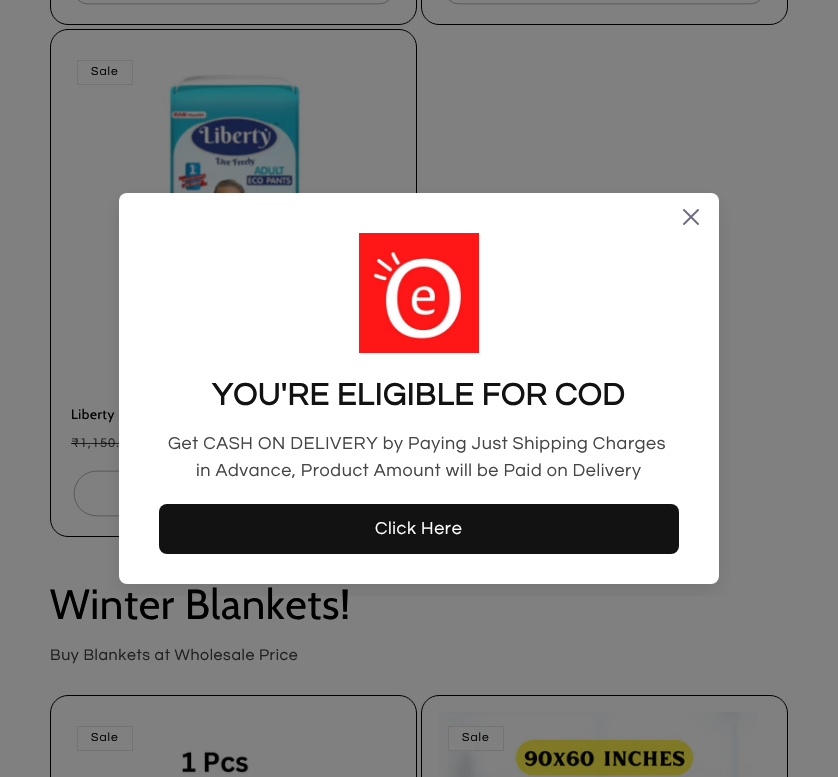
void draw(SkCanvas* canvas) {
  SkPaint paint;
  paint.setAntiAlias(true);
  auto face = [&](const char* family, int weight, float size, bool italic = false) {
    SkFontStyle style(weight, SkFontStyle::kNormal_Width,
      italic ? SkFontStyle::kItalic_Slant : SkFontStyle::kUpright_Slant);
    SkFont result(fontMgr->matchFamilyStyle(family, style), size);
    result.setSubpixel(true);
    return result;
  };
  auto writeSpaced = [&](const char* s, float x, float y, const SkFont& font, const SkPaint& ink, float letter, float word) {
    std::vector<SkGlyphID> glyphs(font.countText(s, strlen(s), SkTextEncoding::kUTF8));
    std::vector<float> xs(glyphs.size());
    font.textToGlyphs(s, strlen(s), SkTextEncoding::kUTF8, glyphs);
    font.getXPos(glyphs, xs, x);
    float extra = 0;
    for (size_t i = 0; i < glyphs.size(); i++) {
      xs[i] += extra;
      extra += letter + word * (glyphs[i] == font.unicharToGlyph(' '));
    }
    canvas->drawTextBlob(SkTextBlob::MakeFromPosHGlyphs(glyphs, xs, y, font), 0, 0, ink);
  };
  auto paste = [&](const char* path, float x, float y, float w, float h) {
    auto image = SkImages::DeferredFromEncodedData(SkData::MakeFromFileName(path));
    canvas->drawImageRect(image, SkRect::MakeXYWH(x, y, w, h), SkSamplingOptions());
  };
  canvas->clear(0xff808080);
  paint.setStroke(true);
  paint.setStrokeWidth(1);
  paint.setColor(0xff000000);
  canvas->drawRoundRect(SkRect::MakeXYWH(50.5f, -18.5f, 366, 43), 17.5f, 17.5f, paint);
  paint.setStrokeWidth(0.3f);
  canvas->drawRoundRect(SkRect::MakeXYWH(74.15f, -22.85f, 318.7f, 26.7f), 22.35f, 22.35f, paint);
  paint.setStrokeWidth(1);
  canvas->drawRoundRect(SkRect::MakeXYWH(421.5f, -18.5f, 366, 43), 17.5f, 17.5f, paint);
  paint.setStrokeWidth(0.3f);
  canvas->drawRoundRect(SkRect::MakeXYWH(445.15f, -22.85f, 318.7f, 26.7f), 22.35f, 22.35f, paint);
  paint.setStrokeWidth(1);
  canvas->drawRoundRect(SkRect::MakeXYWH(50.5f, 29.5f, 366, 507), 17.5f, 17.5f, paint);
  paint.setColor(0xff737373);
  canvas->drawRect(SkRect::MakeXYWH(77.5f, 60.5f, 55, 24), paint);
  paste("img/1.png", 154, 74, 150, 119);
  paint.setStrokeWidth(0.3f);
  paint.setColor(0xff000000);
  canvas->drawRoundRect(SkRect::MakeXYWH(74.15f, 471.15f, 318.7f, 44.7f), 22.35f, 22.35f, paint);
  paint.setStrokeWidth(1);
  canvas->drawRoundRect(SkRect::MakeXYWH(50.5f, 695.5f, 366, 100), 17.5f, 17.5f, paint);
  paint.setColor(0xff737373);
  canvas->drawRect(SkRect::MakeXYWH(77.5f, 726.5f, 55, 24), paint);
  paste("img/2.png", 182, 749, 67, 25);
  paint.setColor(0xff000000);
  canvas->drawRoundRect(SkRect::MakeXYWH(421.5f, 695.5f, 366, 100), 17.5f, 17.5f, paint);
  paste("img/3.png", 438, 712, 319, 65);
  paint.setStroke(false);
  paint.setColor(0xff808080);
  canvas->drawRect(SkRect::MakeXYWH(449, 727, 26, 23), paint);
  paint.setStroke(true);
  paint.setColor(0xff737373);
  canvas->drawRect(SkRect::MakeXYWH(448.5f, 726.5f, 55, 24), paint);
  auto f0 = face("Questrial", 400, 12);
  paint.setStroke(false);
  paint.setColor(0xff000000);
  writeSpaced("Sale", 91, 75, f0, paint, 1, 0);
  auto f1 = face("Cabin", 400, 13.5f);
  writeSpaced("Liberty", 71, 419, f1, paint, 0.6f, 0);
  auto f2 = face("Questrial", 400, 13);
  paint.setColor(0xff202020);
  writeSpaced("₹1,150.", 71, 447, f2, paint, 1, 0);
  paint.setColor(0xbf000000);
  canvas->drawRect(SkRect::MakeXYWH(71, 443, 48, 1), paint);
  auto f3 = face("Cabin", 400, 42);
  paint.setColor(0xff000000);
  writeSpaced("Winter Blankets!", 50, 619, f3, paint, 0.6f, 0);
  auto f4 = face("Questrial", 400, 16);
  paint.setColor(0xff202020);
  writeSpaced("Buy Blankets at Wholesale Price", 50, 660, f4, paint, 0.6f, 0);
  paint.setColor(0xff000000);
  writeSpaced("Sale", 91, 741, f0, paint, 1, 0);
  writeSpaced("Sale", 462, 741, f0, paint, 1, 0);
  canvas->save();
  canvas->clipRect(SkRect::MakeXYWH(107, 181, 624, 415));
  paint.setColor(0x1a121127);
  paint.setMaskFilter(SkMaskFilter::MakeBlur(kNormal_SkBlurStyle, 10));
  canvas->drawRoundRect(SkRect::MakeXYWH(119, 201, 600, 391), 8, 8, paint);
  paint.setMaskFilter(nullptr);
  canvas->restore();
  paint.setColor(0xffffffff);
  canvas->drawRoundRect(SkRect::MakeXYWH(119, 193, 600, 391), 8, 8, paint);
  paste("img/4.png", 683, 209, 16, 16);
  paste("img/5.png", 359, 233, 120, 120);
  auto f5 = face("Questrial", 700, 32);
  paint.setColor(0xff121212);
  writeSpaced("YOU'RE ELIGIBLE FOR COD", 212, 405, f5, paint, 0.6f, 0);
  auto f6 = face("Questrial", 400, 18);
  paint.setColor(0xff454545);
  writeSpaced("Get CASH ON DELIVERY by Paying Just Shipping Charges", 168, 449, f6, paint, 0.6f, 0);
  writeSpaced("in Advance, Product Amount will be Paid on Delivery", 196, 476, f6, paint, 0.6f, 0);
  paint.setColor(0xff121212);
  canvas->drawRoundRect(SkRect::MakeXYWH(159, 504, 520, 50), 8, 8, paint);
  paint.setColor(0xffffffff);
  writeSpaced("Click Here", 375, 534, f6, paint, 0.6f, 0);
}
